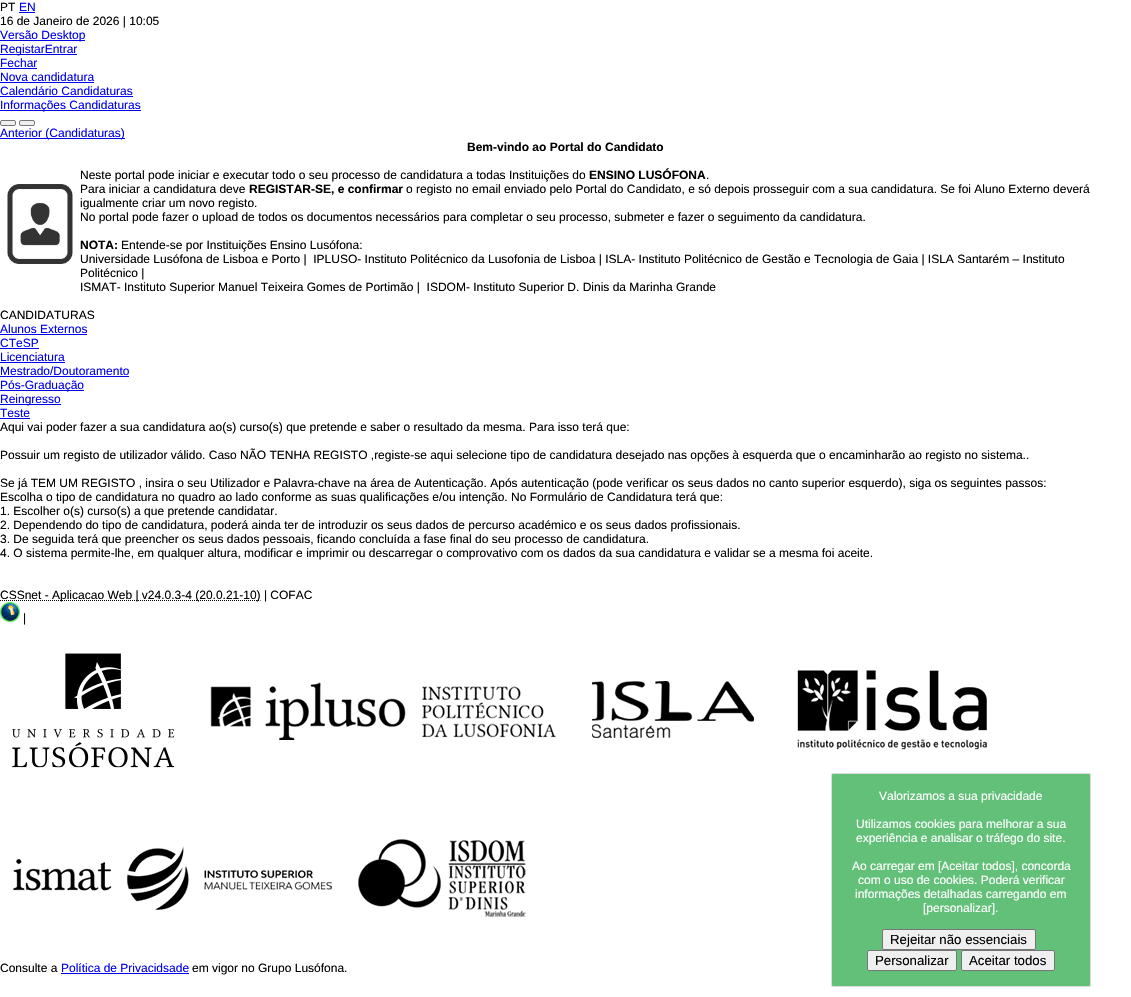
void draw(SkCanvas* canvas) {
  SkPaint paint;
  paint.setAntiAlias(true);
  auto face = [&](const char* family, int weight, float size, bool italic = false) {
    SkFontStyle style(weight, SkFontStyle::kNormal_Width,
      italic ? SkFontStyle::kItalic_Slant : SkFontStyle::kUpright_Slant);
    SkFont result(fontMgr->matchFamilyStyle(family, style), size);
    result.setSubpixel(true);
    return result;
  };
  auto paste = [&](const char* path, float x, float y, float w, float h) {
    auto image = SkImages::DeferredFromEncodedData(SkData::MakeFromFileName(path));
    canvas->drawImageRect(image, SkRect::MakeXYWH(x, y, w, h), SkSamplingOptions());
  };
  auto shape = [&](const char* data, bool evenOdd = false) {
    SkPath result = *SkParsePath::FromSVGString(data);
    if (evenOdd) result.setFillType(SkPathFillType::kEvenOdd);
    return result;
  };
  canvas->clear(0xffffffff);
  {
    const struct { float x, y, w, h; SkColor color; } items[] = {
      {19, 12, 16, 1, 0xff0000ee},
      {0, 40, 85, 1, 0xff0000ee},
      {0, 54, 77, 1, 0xff0000ee},
      {0, 68, 37, 1, 0xff0000ee},
      {0, 82, 94, 1, 0xff0000ee},
      {0, 96, 133, 1, 0xff0000ee},
      {0, 110, 141, 1, 0xff0000ee},
    };
    for (auto [x, y, w, h, color] : items) {
      paint.setColor(color);
      canvas->drawRect(SkRect::MakeXYWH(x, y, w, h), paint);
    }
  }
  paint.setColor(0xffefefef);
  canvas->drawRoundRect(SkRect::MakeXYWH(0.5f, 120.5f, 15, 5), 1.5f, 1.5f, paint);
  paint.setStroke(true);
  paint.setStrokeWidth(1);
  paint.setColor(0xff767676);
  canvas->drawRoundRect(SkRect::MakeXYWH(0.5f, 120.5f, 15, 5), 1.5f, 1.5f, paint);
  paint.setStroke(false);
  paint.setColor(0xffefefef);
  canvas->drawRoundRect(SkRect::MakeXYWH(19.5f, 120.5f, 15, 5), 1.5f, 1.5f, paint);
  paint.setStroke(true);
  paint.setColor(0xff767676);
  canvas->drawRoundRect(SkRect::MakeXYWH(19.5f, 120.5f, 15, 5), 1.5f, 1.5f, paint);
  paint.setStroke(false);
  paint.setColor(0xff0000ee);
  canvas->drawRect(SkRect::MakeXYWH(0, 138, 125, 1), paint);
  paste("img/1.png", 7, 184, 66, 80);
  {
    const struct { float x, y, w, h; SkColor color; } items[] = {
      {0, 334, 87, 1, 0xff0000ee},
      {0, 348, 39, 1, 0xff0000ee},
      {0, 362, 65, 1, 0xff0000ee},
      {0, 376, 129, 1, 0xff0000ee},
      {0, 390, 84, 1, 0xff0000ee},
      {0, 404, 61, 1, 0xff0000ee},
      {0, 418, 30, 1, 0xff0000ee},
    };
    for (auto [x, y, w, h, color] : items) {
      paint.setColor(color);
      canvas->drawRect(SkRect::MakeXYWH(x, y, w, h), paint);
    }
  }
  paint.setStroke(true);
  paint.setColor(0xff000000);
  paint.setPathEffect(SkDashPathEffect::Make({{1, 1}}, 0));
  canvas->drawPath(shape("M0 600.5H260.5"), paint);
  paint.setPathEffect(nullptr);
  paste("img/2.png", 0, 602, 20, 20);
  paste("img/3.png", 12, 653, 163, 115);
  paste("img/4.png", 210, 682, 346, 58);
  paste("img/5.png", 592, 681, 162, 57);
  paste("img/6.png", 797, 670, 190, 80);
  paste("img/7.png", 13, 846, 319, 64);
  paste("img/8.png", 358, 839, 168, 78);
  paint.setStroke(false);
  paint.setColor(0xff0000ee);
  canvas->drawRect(SkRect::MakeXYWH(61, 973, 128, 1), paint);
  paint.setColor(0xff63c079);
  canvas->drawRoundRect(SkRect::MakeXYWH(831.5f, 773.5f, 259, 213), 1.5f, 1.5f, paint);
  paint.setStroke(true);
  paint.setColor(0xffdddddd);
  canvas->drawRoundRect(SkRect::MakeXYWH(831.5f, 773.5f, 259, 213), 1.5f, 1.5f, paint);
  paint.setStroke(false);
  paint.setColor(0xffefefef);
  canvas->drawRoundRect(SkRect::MakeXYWH(882.5f, 929.5f, 153, 20), 1.5f, 1.5f, paint);
  paint.setStroke(true);
  paint.setColor(0xff767676);
  canvas->drawRoundRect(SkRect::MakeXYWH(882.5f, 929.5f, 153, 20), 1.5f, 1.5f, paint);
  paint.setStroke(false);
  paint.setColor(0xffefefef);
  canvas->drawRoundRect(SkRect::MakeXYWH(867.5f, 950.5f, 89, 20), 1.5f, 1.5f, paint);
  paint.setStroke(true);
  paint.setColor(0xff767676);
  canvas->drawRoundRect(SkRect::MakeXYWH(867.5f, 950.5f, 89, 20), 1.5f, 1.5f, paint);
  paint.setStroke(false);
  paint.setColor(0xffefefef);
  canvas->drawRoundRect(SkRect::MakeXYWH(961.5f, 950.5f, 93, 20), 1.5f, 1.5f, paint);
  paint.setStroke(true);
  paint.setColor(0xff767676);
  canvas->drawRoundRect(SkRect::MakeXYWH(961.5f, 950.5f, 93, 20), 1.5f, 1.5f, paint);
  auto f0 = face("Liberation Sans", 400, 12);
  paint.setStroke(false);
  paint.setColor(0xff000000);
  canvas->drawString("PT", 0, 11, f0, paint);
  paint.setColor(0xff0000ee);
  canvas->drawString("EN", 19, 11, f0, paint);
  paint.setColor(0xff000000);
  canvas->drawString("16 de Janeiro de 2026 | 10:05", 0, 25, f0, paint);
  paint.setColor(0xff0000ee);
  {
    const struct { const char* s; float x, y; } items[] = {
      {"Versão Desktop", 0, 39},
      {"RegistarEntrar", 0, 53},
      {"Fechar", 0, 67},
      {"Nova candidatura", 0, 81},
      {"Calendário Candidaturas", 0, 95},
      {"Informações Candidaturas", 0, 109},
      {"Anterior (Candidaturas)", 0, 137},
    };
    for (auto [s, x, y] : items) {
      canvas->drawString(s, x, y, f0, paint);
    }
  }
  auto f1 = face("Liberation Sans", 700, 12);
  paint.setColor(0xff000000);
  canvas->drawString("Bem-vindo ao Portal do Candidato", 467, 151, f1, paint);
  canvas->drawString("Neste portal pode iniciar e executar todo o seu processo de candidatura a todas Instituições do", 80, 179, f0, paint);
  canvas->drawString("ENSINO LUSÓFONA", 589, 179, f1, paint);
  canvas->drawString(".", 706, 179, f0, paint);
  canvas->drawString("Para iniciar a candidatura deve", 80, 193, f0, paint);
  canvas->drawString("REGISTAR-SE, e confirmar", 249, 193, f1, paint);
  {
    const struct { const char* s; float x, y; } items[] = {
      {"o registo no email enviado pelo Portal do Candidato, e só depois prosseguir com a sua candidatura. Se foi Aluno Externo deverá", 406, 193},
      {"igualmente criar um novo registo.", 80, 207},
      {"No portal pode fazer o upload de todos os documentos necessários para completar o seu processo, submeter e fazer o seguimento da candidatura.", 80, 221},
    };
    for (auto [s, x, y] : items) {
      canvas->drawString(s, x, y, f0, paint);
    }
  }
  canvas->drawString("NOTA:", 80, 249, f1, paint);
  {
    const struct { const char* s; float x, y; } items[] = {
      {"Entende-se por Instituições Ensino Lusófona:", 121, 249},
      {"Universidade Lusófona de Lisboa e Porto |  IPLUSO- Instituto Politécnico da Lusofonia de Lisboa | ISLA- Instituto Politécnico de Gestão e Tecnologia de Gaia | ISLA Santarém – Instituto", 80, 263},
      {"Politécnico |", 80, 277},
      {"ISMAT- Instituto Superior Manuel Teixeira Gomes de Portimão |  ISDOM- Instituto Superior D. Dinis da Marinha Grande", 80, 291},
      {"CANDIDATURAS", 0, 319},
    };
    for (auto [s, x, y] : items) {
      canvas->drawString(s, x, y, f0, paint);
    }
  }
  paint.setColor(0xff0000ee);
  {
    const struct { const char* s; float x, y; } items[] = {
      {"Alunos Externos", 0, 333},
      {"CTeSP", 0, 347},
      {"Licenciatura", 0, 361},
      {"Mestrado/Doutoramento", 0, 375},
      {"Pós-Graduação", 0, 389},
      {"Reingresso", 0, 403},
      {"Teste", 0, 417},
    };
    for (auto [s, x, y] : items) {
      canvas->drawString(s, x, y, f0, paint);
    }
  }
  paint.setColor(0xff000000);
  {
    const struct { const char* s; float x, y; } items[] = {
      {"Aqui vai poder fazer a sua candidatura ao(s) curso(s) que pretende e saber o resultado da mesma. Para isso terá que:", 0, 431},
      {"Possuir um registo de utilizador válido. Caso NÃO TENHA REGISTO ,registe-se aqui selecione tipo de candidatura desejado nas opções à esquerda que o encaminharão ao registo no sistema..", 0, 459},
      {"Se já TEM UM REGISTO , insira o seu Utilizador e Palavra-chave na área de Autenticação. Após autenticação (pode verificar os seus dados no canto superior esquerdo), siga os seguintes passos:", 0, 487},
      {"Escolha o tipo de candidatura no quadro ao lado conforme as suas qualificações e/ou intenção. No Formulário de Candidatura terá que:", 0, 501},
      {"1. Escolher o(s) curso(s) a que pretende candidatar.", 0, 515},
      {"2. Dependendo do tipo de candidatura, poderá ainda ter de introduzir os seus dados de percurso académico e os seus dados profissionais.", 0, 529},
      {"3. De seguida terá que preencher os seus dados pessoais, ficando concluída a fase final do seu processo de candidatura.", 0, 543},
      {"4. O sistema permite-lhe, em qualquer altura, modificar e imprimir ou descarregar o comprovativo com os dados da sua candidatura e validar se a mesma foi aceite.", 0, 557},
      {"CSSnet - Aplicacao Web | v24.0.3-4 (20.0.21-10) | COFAC", 0, 599},
      {"|", 23, 622},
      {"Consulte a", 0, 972},
    };
    for (auto [s, x, y] : items) {
      canvas->drawString(s, x, y, f0, paint);
    }
  }
  paint.setColor(0xff0000ee);
  canvas->drawString("Política de Privacidsade", 61, 972, f0, paint);
  paint.setColor(0xff000000);
  canvas->drawString("em vigor no Grupo Lusófona.", 192, 972, f0, paint);
  paint.setColor(0xffffffff);
  {
    const struct { const char* s; float x, y; } items[] = {
      {"Valorizamos a sua privacidade", 879, 800},
      {"Utilizamos cookies para melhorar a sua", 856, 828},
      {"experiência e analisar o tráfego do site.", 856, 842},
      {"Ao carregar em [Aceitar todos], concorda", 852, 870},
      {"com o uso de cookies. Poderá verificar", 858, 884},
      {"informações detalhadas carregando em", 855, 898},
      {"[personalizar].", 923, 912},
    };
    for (auto [s, x, y] : items) {
      canvas->drawString(s, x, y, f0, paint);
    }
  }
  auto f2 = face("Liberation Sans", 400, 13.25f);
  paint.setColor(0xff000000);
  {
    const struct { const char* s; float x, y; } items[] = {
      {"Rejeitar não essenciais", 890, 944},
      {"Personalizar", 875, 965},
      {"Aceitar todos", 969, 965},
    };
    for (auto [s, x, y] : items) {
      canvas->drawString(s, x, y, f2, paint);
    }
  }
}
